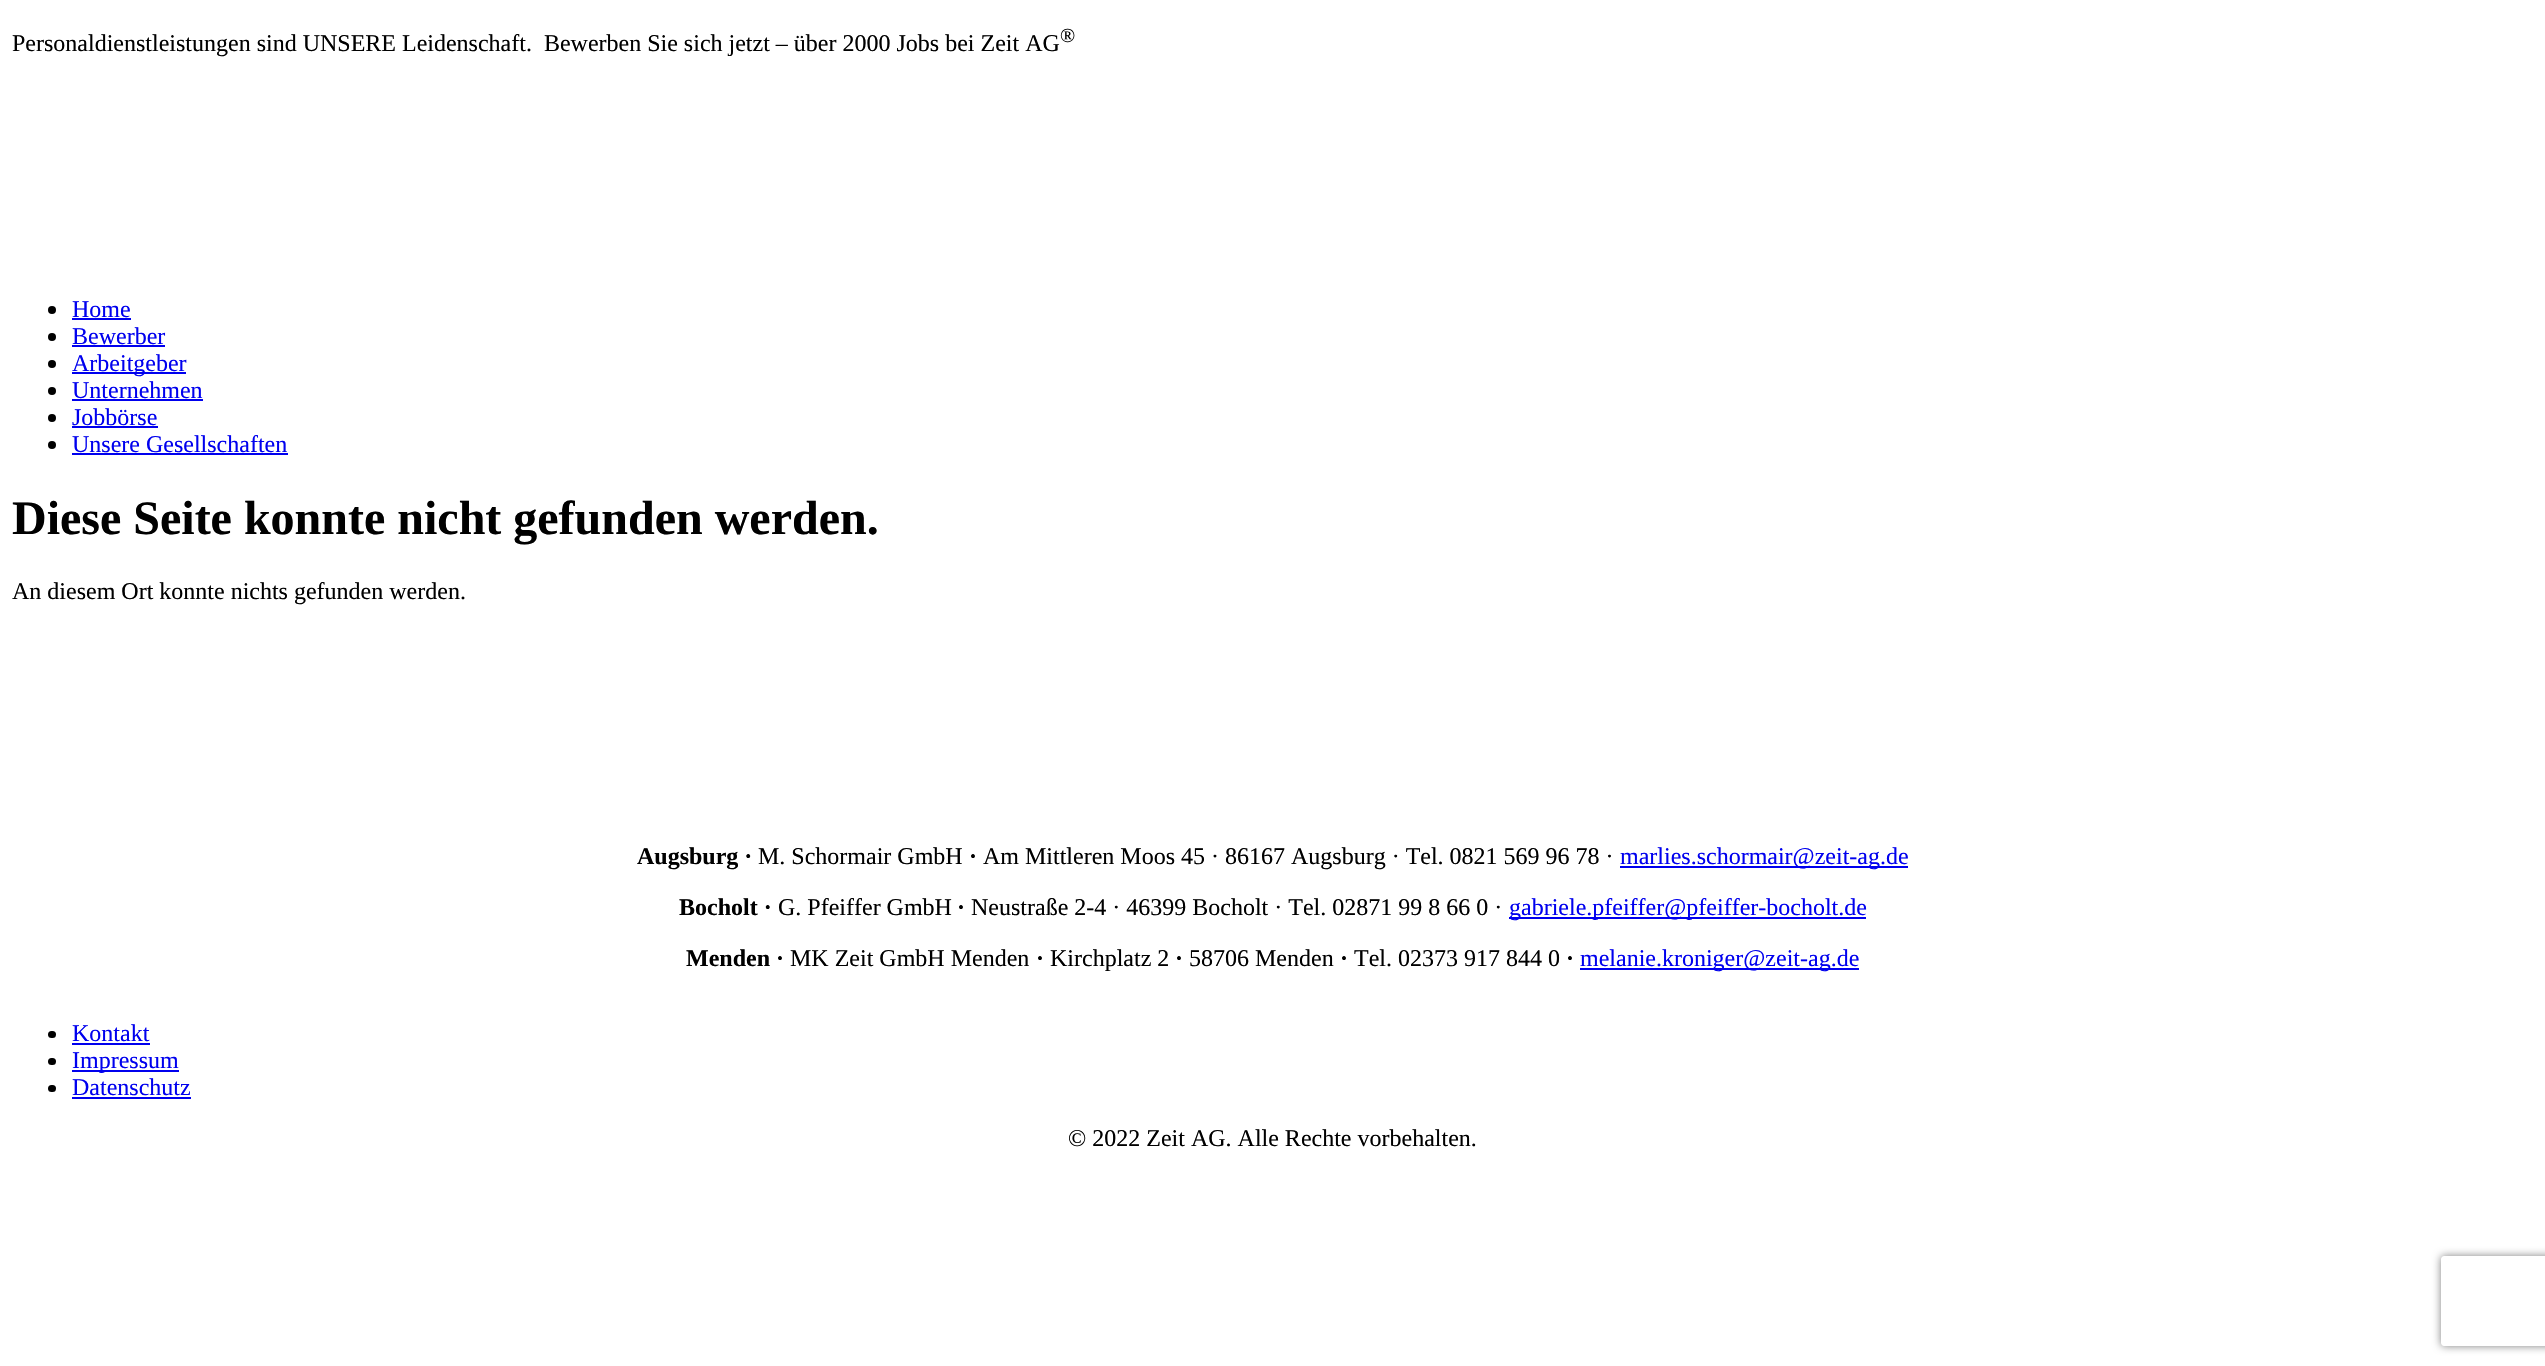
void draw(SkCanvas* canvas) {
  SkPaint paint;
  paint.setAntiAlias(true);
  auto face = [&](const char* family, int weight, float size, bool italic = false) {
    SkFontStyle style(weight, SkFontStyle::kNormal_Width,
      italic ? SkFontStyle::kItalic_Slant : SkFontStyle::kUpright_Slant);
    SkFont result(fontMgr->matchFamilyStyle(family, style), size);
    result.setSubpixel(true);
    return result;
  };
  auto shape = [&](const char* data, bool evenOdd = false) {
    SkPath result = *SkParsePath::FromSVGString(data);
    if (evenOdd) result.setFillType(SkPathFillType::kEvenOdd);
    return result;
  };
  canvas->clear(0xffffffff);
  paint.setColor(0xff000000);
  canvas->drawCircle(52, 310, 4, paint);
  paint.setColor(0xff0000ee);
  canvas->drawRect(SkRect::MakeXYWH(72, 318, 59, 2), paint);
  paint.setColor(0xff000000);
  canvas->drawCircle(52, 337, 4, paint);
  paint.setColor(0xff0000ee);
  canvas->drawRect(SkRect::MakeXYWH(72, 345, 93, 2), paint);
  paint.setColor(0xff000000);
  canvas->drawCircle(52, 364, 4, paint);
  paint.setColor(0xff0000ee);
  canvas->drawRect(SkRect::MakeXYWH(72, 372, 114, 2), paint);
  paint.setColor(0xff000000);
  canvas->drawCircle(52, 391, 4, paint);
  paint.setColor(0xff0000ee);
  canvas->drawRect(SkRect::MakeXYWH(72, 399, 131, 2), paint);
  paint.setColor(0xff000000);
  canvas->drawCircle(52, 418, 4, paint);
  paint.setColor(0xff0000ee);
  canvas->drawRect(SkRect::MakeXYWH(72, 426, 86, 2), paint);
  paint.setColor(0xff000000);
  canvas->drawCircle(52, 445, 4, paint);
  {
    const struct { float x, y, w, h; SkColor color; } items[] = {
      {72, 453, 216, 2, 0xff0000ee},
      {1620, 866, 288, 2, 0xff0000ee},
      {1509, 917, 357, 2, 0xff0000ee},
      {1580, 968, 279, 2, 0xff0000ee},
    };
    for (auto [x, y, w, h, color] : items) {
      paint.setColor(color);
      canvas->drawRect(SkRect::MakeXYWH(x, y, w, h), paint);
    }
  }
  paint.setColor(0xff000000);
  canvas->drawRoundRect(SkRect::MakeXYWH(48, 1031, 8, 7), 3.5f, 3.5f, paint);
  paint.setColor(0xff0000ee);
  canvas->drawRect(SkRect::MakeXYWH(72, 1043, 78, 2), paint);
  paint.setColor(0xff000000);
  canvas->drawRoundRect(SkRect::MakeXYWH(48, 1058, 8, 7), 3.5f, 3.5f, paint);
  paint.setColor(0xff0000ee);
  canvas->drawRect(SkRect::MakeXYWH(72, 1070, 107, 2), paint);
  paint.setColor(0xff000000);
  canvas->drawRoundRect(SkRect::MakeXYWH(48, 1085, 8, 7), 3.5f, 3.5f, paint);
  paint.setColor(0xff0000ee);
  canvas->drawRect(SkRect::MakeXYWH(72, 1097, 119, 2), paint);
  canvas->save();
  canvas->clipPath(shape("M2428 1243H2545V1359H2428ZM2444 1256H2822C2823.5 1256 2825 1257.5 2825 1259V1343C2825 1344.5 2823.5 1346 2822 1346H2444C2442.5 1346 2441 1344.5 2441 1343V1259C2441 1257.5 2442.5 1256 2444 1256Z", true), true);
  paint.setColor(0xff808080);
  paint.setMaskFilter(SkMaskFilter::MakeBlur(kNormal_SkBlurStyle, 4));
  canvas->drawRoundRect(SkRect::MakeXYWH(2441, 1256, 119, 90), 3, 3, paint);
  paint.setMaskFilter(nullptr);
  canvas->restore();
  auto f0 = face("Liberation Serif", 400, 24);
  paint.setColor(0xff000000);
  canvas->drawString("Personaldienstleistungen sind UNSERE Leidenschaft.  Bewerben Sie sich jetzt – über 2000 Jobs bei Zeit AG", 12, 51, f0, paint);
  auto f1 = face("Liberation Serif", 400, 20);
  canvas->drawString("®", 1060, 42, f1, paint);
  paint.setColor(0xff0000ee);
  {
    const struct { const char* s; float x, y; } items[] = {
      {"Home", 72, 317},
      {"Bewerber", 72, 344},
      {"Arbeitgeber", 72, 371},
      {"Unternehmen", 72, 398},
      {"Jobbörse", 72, 425},
      {"Unsere Gesellschaften", 72, 452},
    };
    for (auto [s, x, y] : items) {
      canvas->drawString(s, x, y, f0, paint);
    }
  }
  auto f2 = face("Liberation Serif", 700, 48);
  paint.setColor(0xff000000);
  canvas->drawString("Diese Seite konnte nicht gefunden werden.", 12, 534, f2, paint);
  canvas->drawString("An diesem Ort konnte nichts gefunden werden.", 12, 599, f0, paint);
  auto f3 = face("Liberation Serif", 700, 24);
  canvas->drawString("Augsburg ·", 637, 864, f3, paint);
  canvas->drawString("M. Schormair GmbH", 758, 864, f0, paint);
  canvas->drawString("·", 969, 864, f3, paint);
  canvas->drawString("Am Mittleren Moos 45 · 86167 Augsburg · Tel. 0821 569 96 78 ·", 983, 864, f0, paint);
  paint.setColor(0xff0000ee);
  canvas->drawString("marlies.schormair@zeit-ag.de", 1620, 864, f0, paint);
  paint.setColor(0xff000000);
  canvas->drawString("Bocholt ·", 679, 915, f3, paint);
  canvas->drawString("G. Pfeiffer GmbH", 778, 915, f0, paint);
  canvas->drawString("·", 957, 915, f3, paint);
  canvas->drawString("Neustraße 2-4 · 46399 Bocholt · Tel. 02871 99 8 66 0 ·", 971, 915, f0, paint);
  paint.setColor(0xff0000ee);
  canvas->drawString("gabriele.pfeiffer@pfeiffer-bocholt.de", 1509, 915, f0, paint);
  paint.setColor(0xff000000);
  canvas->drawString("Menden ·", 686, 966, f3, paint);
  canvas->drawString("MK Zeit GmbH Menden", 790, 966, f0, paint);
  canvas->drawString("·", 1036, 966, f3, paint);
  canvas->drawString("Kirchplatz 2", 1050, 966, f0, paint);
  canvas->drawString("·", 1175, 966, f3, paint);
  canvas->drawString("58706 Menden", 1189, 966, f0, paint);
  canvas->drawString("·", 1340, 966, f3, paint);
  canvas->drawString("Tel. 02373 917 844 0", 1354, 966, f0, paint);
  canvas->drawString("·", 1566, 966, f3, paint);
  paint.setColor(0xff0000ee);
  {
    const struct { const char* s; float x, y; } items[] = {
      {"melanie.kroniger@zeit-ag.de", 1580, 966},
      {"Kontakt", 72, 1041},
      {"Impressum", 72, 1068},
      {"Datenschutz", 72, 1095},
    };
    for (auto [s, x, y] : items) {
      canvas->drawString(s, x, y, f0, paint);
    }
  }
  paint.setColor(0xff000000);
  canvas->drawString("© 2022 Zeit AG. Alle Rechte vorbehalten.", 1068, 1146, f0, paint);
}
